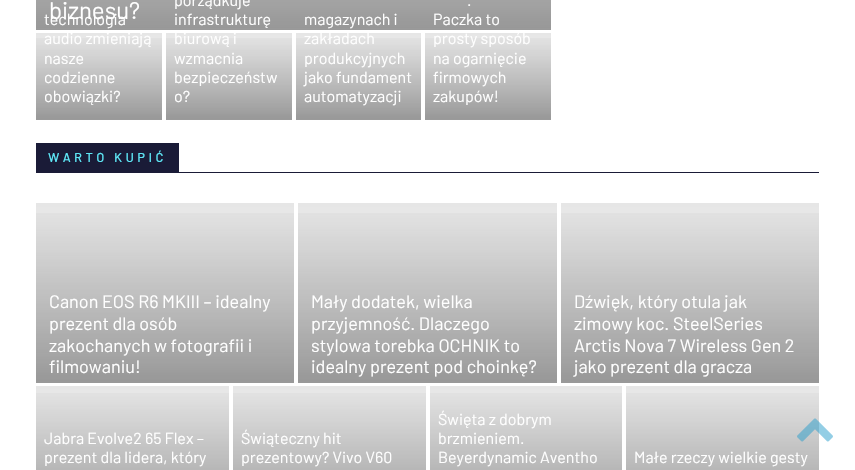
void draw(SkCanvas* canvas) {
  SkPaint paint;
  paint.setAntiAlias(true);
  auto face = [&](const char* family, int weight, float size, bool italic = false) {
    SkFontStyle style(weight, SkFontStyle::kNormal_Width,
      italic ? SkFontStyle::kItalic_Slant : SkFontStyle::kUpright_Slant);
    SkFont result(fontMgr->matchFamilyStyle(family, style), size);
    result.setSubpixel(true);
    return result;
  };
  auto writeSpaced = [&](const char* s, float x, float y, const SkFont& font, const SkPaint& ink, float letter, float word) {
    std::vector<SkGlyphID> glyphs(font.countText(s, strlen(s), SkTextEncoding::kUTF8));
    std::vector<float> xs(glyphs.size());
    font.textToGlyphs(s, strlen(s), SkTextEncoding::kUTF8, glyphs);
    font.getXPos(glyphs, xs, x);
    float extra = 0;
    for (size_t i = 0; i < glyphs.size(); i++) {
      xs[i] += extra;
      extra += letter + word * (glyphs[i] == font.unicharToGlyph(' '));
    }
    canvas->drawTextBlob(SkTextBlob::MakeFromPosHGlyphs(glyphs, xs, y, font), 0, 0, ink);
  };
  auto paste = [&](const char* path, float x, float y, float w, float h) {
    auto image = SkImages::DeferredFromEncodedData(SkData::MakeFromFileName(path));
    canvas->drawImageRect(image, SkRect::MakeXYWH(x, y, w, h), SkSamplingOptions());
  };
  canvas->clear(0xffffffff);
  {
    const SkColor colors[] = {0xffffffff, 0xfffcfcfc, 0xffe6e6e6};
    const float stops[] = {0, 0.01f, 1};
    const SkPoint ends[] = {{294, 30}, {294, -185}};
    paint.setShader(SkGradientShader::MakeLinear(ends, colors, stops, 3, SkTileMode::kClamp));
    paint.setAlpha(255);
  }
  canvas->drawRect(SkRect::MakeXYWH(36, 0, 515, 28), paint);
  {
    const SkColor colors[] = {0x00000000, 0x66000000};
    const float stops[] = {0, 1};
    const SkPoint ends[] = {{294, -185}, {294, 30}};
    paint.setShader(SkGradientShader::MakeLinear(ends, colors, stops, 2, SkTileMode::kClamp));
    paint.setAlpha(255);
  }
  canvas->drawRect(SkRect::MakeXYWH(36, 0, 515, 30), paint);
  {
    const SkColor colors[] = {0xffffffff, 0xfffcfcfc, 0xffe6e6e6};
    const float stops[] = {0, 0.01f, 1};
    const SkPoint ends[] = {{229, 120}, {229, 33}};
    paint.setShader(SkGradientShader::MakeLinear(ends, colors, stops, 3, SkTileMode::kClamp));
    paint.setAlpha(255);
  }
  canvas->drawRect(SkRect::MakeXYWH(166, 33, 126, 86), paint);
  {
    const SkColor colors[] = {0x00000000, 0x66000000};
    const float stops[] = {0, 1};
    const SkPoint ends[] = {{229, 33}, {229, 120}};
    paint.setShader(SkGradientShader::MakeLinear(ends, colors, stops, 2, SkTileMode::kClamp));
    paint.setAlpha(255);
  }
  canvas->drawRect(SkRect::MakeXYWH(166, 38, 126, 82), paint);
  {
    const SkColor colors[] = {0xffffffff, 0xfffcfcfc, 0xffe6e6e6};
    const float stops[] = {0, 0.01f, 1};
    const SkPoint ends[] = {{488, 120}, {488, 33}};
    paint.setShader(SkGradientShader::MakeLinear(ends, colors, stops, 3, SkTileMode::kClamp));
    paint.setAlpha(255);
  }
  canvas->drawRect(SkRect::MakeXYWH(425, 33, 126, 86), paint);
  {
    const SkColor colors[] = {0x00000000, 0x66000000};
    const float stops[] = {0, 1};
    const SkPoint ends[] = {{488, 33}, {488, 120}};
    paint.setShader(SkGradientShader::MakeLinear(ends, colors, stops, 2, SkTileMode::kClamp));
    paint.setAlpha(255);
  }
  canvas->drawRect(SkRect::MakeXYWH(425, 38, 126, 82), paint);
  {
    const SkColor colors[] = {0xffffffff, 0xfffcfcfc, 0xffe6e6e6};
    const float stops[] = {0, 0.01f, 1};
    const SkPoint ends[] = {{99, 120}, {99, 33}};
    paint.setShader(SkGradientShader::MakeLinear(ends, colors, stops, 3, SkTileMode::kClamp));
    paint.setAlpha(255);
  }
  canvas->drawRect(SkRect::MakeXYWH(36, 33, 126, 86), paint);
  {
    const SkColor colors[] = {0x00000000, 0x66000000};
    const float stops[] = {0, 1};
    const SkPoint ends[] = {{99, 33}, {99, 120}};
    paint.setShader(SkGradientShader::MakeLinear(ends, colors, stops, 2, SkTileMode::kClamp));
    paint.setAlpha(255);
  }
  canvas->drawRect(SkRect::MakeXYWH(36, 38, 126, 82), paint);
  {
    const SkColor colors[] = {0xffffffff, 0xfffcfcfc, 0xffe6e6e6};
    const float stops[] = {0, 0.01f, 1};
    const SkPoint ends[] = {{359, 120}, {359, 33}};
    paint.setShader(SkGradientShader::MakeLinear(ends, colors, stops, 3, SkTileMode::kClamp));
    paint.setAlpha(255);
  }
  canvas->drawRect(SkRect::MakeXYWH(296, 33, 125, 86), paint);
  {
    const SkColor colors[] = {0x00000000, 0x66000000};
    const float stops[] = {0, 1};
    const SkPoint ends[] = {{359, 33}, {359, 120}};
    paint.setShader(SkGradientShader::MakeLinear(ends, colors, stops, 2, SkTileMode::kClamp));
    paint.setAlpha(255);
  }
  canvas->drawRect(SkRect::MakeXYWH(296, 38, 125, 82), paint);
  paint.setShader(nullptr);
  paint.setColor(0xff1a1b37);
  canvas->drawRect(SkRect::MakeXYWH(36, 172, 783, 1), paint);
  canvas->drawRect(SkRect::MakeXYWH(36, 143, 143, 29), paint);
  {
    const SkColor colors[] = {0xffffffff, 0xfffcfcfc, 0xffe6e6e6};
    const float stops[] = {0, 0.01f, 1};
    const SkPoint ends[] = {{165, 383}, {165, 203}};
    paint.setShader(SkGradientShader::MakeLinear(ends, colors, stops, 3, SkTileMode::kClamp));
    paint.setAlpha(255);
  }
  canvas->drawRect(SkRect::MakeXYWH(36, 203, 258, 179), paint);
  {
    const SkColor colors[] = {0x00000000, 0x66000000};
    const float stops[] = {0, 1};
    const SkPoint ends[] = {{165, 203}, {165, 383}};
    paint.setShader(SkGradientShader::MakeLinear(ends, colors, stops, 2, SkTileMode::kClamp));
    paint.setAlpha(255);
  }
  canvas->drawRect(SkRect::MakeXYWH(36, 213, 258, 170), paint);
  {
    const SkColor colors[] = {0xffffffff, 0xfffcfcfc, 0xffe6e6e6};
    const float stops[] = {0, 0.01f, 1};
    const SkPoint ends[] = {{428, 383}, {428, 203}};
    paint.setShader(SkGradientShader::MakeLinear(ends, colors, stops, 3, SkTileMode::kClamp));
    paint.setAlpha(255);
  }
  canvas->drawRect(SkRect::MakeXYWH(298, 203, 259, 179), paint);
  {
    const SkColor colors[] = {0x00000000, 0x66000000};
    const float stops[] = {0, 1};
    const SkPoint ends[] = {{428, 203}, {428, 383}};
    paint.setShader(SkGradientShader::MakeLinear(ends, colors, stops, 2, SkTileMode::kClamp));
    paint.setAlpha(255);
  }
  canvas->drawRect(SkRect::MakeXYWH(298, 213, 259, 170), paint);
  {
    const SkColor colors[] = {0xffffffff, 0xfffcfcfc, 0xffe6e6e6};
    const float stops[] = {0, 0.01f, 1};
    const SkPoint ends[] = {{690, 383}, {690, 203}};
    paint.setShader(SkGradientShader::MakeLinear(ends, colors, stops, 3, SkTileMode::kClamp));
    paint.setAlpha(255);
  }
  canvas->drawRect(SkRect::MakeXYWH(561, 203, 258, 179), paint);
  {
    const SkColor colors[] = {0x00000000, 0x66000000};
    const float stops[] = {0, 1};
    const SkPoint ends[] = {{690, 203}, {690, 383}};
    paint.setShader(SkGradientShader::MakeLinear(ends, colors, stops, 2, SkTileMode::kClamp));
    paint.setAlpha(255);
  }
  canvas->drawRect(SkRect::MakeXYWH(561, 213, 258, 170), paint);
  {
    const SkColor colors[] = {0xffffffff, 0xfffcfcfc, 0xffe6e6e6};
    const float stops[] = {0, 0.01f, 1};
    const SkPoint ends[] = {{133, 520}, {133, 386}};
    paint.setShader(SkGradientShader::MakeLinear(ends, colors, stops, 3, SkTileMode::kClamp));
    paint.setAlpha(255);
  }
  canvas->drawRect(SkRect::MakeXYWH(36, 386, 193, 84), paint);
  {
    const SkColor colors[] = {0x00000000, 0x66000000};
    const float stops[] = {0, 1};
    const SkPoint ends[] = {{133, 386}, {133, 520}};
    paint.setShader(SkGradientShader::MakeLinear(ends, colors, stops, 2, SkTileMode::kClamp));
    paint.setAlpha(255);
  }
  canvas->drawRect(SkRect::MakeXYWH(36, 393, 193, 77), paint);
  {
    const SkColor colors[] = {0xffffffff, 0xfffcfcfc, 0xffe6e6e6};
    const float stops[] = {0, 0.01f, 1};
    const SkPoint ends[] = {{330, 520}, {330, 386}};
    paint.setShader(SkGradientShader::MakeLinear(ends, colors, stops, 3, SkTileMode::kClamp));
    paint.setAlpha(255);
  }
  canvas->drawRect(SkRect::MakeXYWH(233, 386, 193, 84), paint);
  {
    const SkColor colors[] = {0x00000000, 0x66000000};
    const float stops[] = {0, 1};
    const SkPoint ends[] = {{330, 386}, {330, 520}};
    paint.setShader(SkGradientShader::MakeLinear(ends, colors, stops, 2, SkTileMode::kClamp));
    paint.setAlpha(255);
  }
  canvas->drawRect(SkRect::MakeXYWH(233, 393, 193, 77), paint);
  {
    const SkColor colors[] = {0xffffffff, 0xfffcfcfc, 0xffe6e6e6};
    const float stops[] = {0, 0.01f, 1};
    const SkPoint ends[] = {{526, 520}, {526, 386}};
    paint.setShader(SkGradientShader::MakeLinear(ends, colors, stops, 3, SkTileMode::kClamp));
    paint.setAlpha(255);
  }
  canvas->drawRect(SkRect::MakeXYWH(430, 386, 192, 84), paint);
  {
    const SkColor colors[] = {0x00000000, 0x66000000};
    const float stops[] = {0, 1};
    const SkPoint ends[] = {{526, 386}, {526, 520}};
    paint.setShader(SkGradientShader::MakeLinear(ends, colors, stops, 2, SkTileMode::kClamp));
    paint.setAlpha(255);
  }
  canvas->drawRect(SkRect::MakeXYWH(430, 393, 192, 77), paint);
  {
    const SkColor colors[] = {0xffffffff, 0xfffcfcfc, 0xffe6e6e6};
    const float stops[] = {0, 0.01f, 1};
    const SkPoint ends[] = {{723, 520}, {723, 386}};
    paint.setShader(SkGradientShader::MakeLinear(ends, colors, stops, 3, SkTileMode::kClamp));
    paint.setAlpha(255);
  }
  canvas->drawRect(SkRect::MakeXYWH(626, 386, 193, 84), paint);
  {
    const SkColor colors[] = {0x00000000, 0x66000000};
    const float stops[] = {0, 1};
    const SkPoint ends[] = {{723, 386}, {723, 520}};
    paint.setShader(SkGradientShader::MakeLinear(ends, colors, stops, 2, SkTileMode::kClamp));
    paint.setAlpha(255);
  }
  canvas->drawRect(SkRect::MakeXYWH(626, 393, 193, 77), paint);
  paste("img/1.png", 797, 418, 36, 24);
  auto f0 = face("Barlow", 400, 24);
  paint.setShader(nullptr);
  paint.setColor(0xffffffff);
  canvas->drawString("biznesu?", 49, 19, f0, paint);
  auto f1 = face("Barlow", 400, 16);
  {
    const struct { const char* s; float x, y; } items[] = {
      {"porządkuje", 174, 6},
      {"infrastrukturę", 174, 25},
      {"biurową i", 174, 44},
      {"wzmacnia", 174, 64},
      {"bezpieczeństw", 174, 83},
      {"o?", 174, 102},
      {".", 467, 6},
      {"Paczka to", 433, 25},
      {"prosty sposób", 433, 44},
      {"na ogarnięcie", 433, 64},
      {"firmowych", 433, 83},
      {"zakupów!", 433, 102},
      {"technologia", 44, 25},
      {"audio zmieniają", 44, 44},
      {"nasze", 44, 64},
      {"codzienne", 44, 83},
      {"obowiązki?", 44, 102},
      {"magazynach i", 304, 25},
      {"zakładach", 304, 44},
      {"produkcyjnych", 304, 64},
      {"jako fundament", 304, 83},
      {"automatyzacji", 304, 102},
    };
    for (auto [s, x, y] : items) {
      canvas->drawString(s, x, y, f1, paint);
    }
  }
  auto f2 = face("Barlow", 700, 12.5f);
  paint.setColor(0xff5de5f4);
  writeSpaced("WARTO KUPIĆ", 48, 162, f2, paint, 3.75f, 0);
  auto f3 = face("Barlow", 400, 18);
  paint.setColor(0xffffffff);
  {
    const struct { const char* s; float x, y; } items[] = {
      {"Canon EOS R6 MKIII – idealny", 49, 308},
      {"prezent dla osób", 49, 330},
      {"zakochanych w fotografii i", 49, 352},
      {"filmowaniu!", 49, 373},
      {"Mały dodatek, wielka", 311, 308},
      {"przyjemność. Dlaczego", 311, 330},
      {"stylowa torebka OCHNIK to", 311, 352},
      {"idealny prezent pod choinkę?", 311, 373},
      {"Dźwięk, który otula jak", 574, 308},
      {"zimowy koc. SteelSeries", 574, 330},
      {"Arctis Nova 7 Wireless Gen 2", 574, 352},
      {"jako prezent dla gracza", 574, 373},
    };
    for (auto [s, x, y] : items) {
      canvas->drawString(s, x, y, f3, paint);
    }
  }
  {
    const struct { const char* s; float x, y; } items[] = {
      {"Jabra Evolve2 65 Flex –", 44, 444},
      {"prezent dla lidera, który", 44, 463},
      {"Świąteczny hit", 241, 444},
      {"prezentowy? Vivo V60", 241, 463},
      {"Święta z dobrym", 438, 425},
      {"brzmieniem.", 438, 444},
      {"Beyerdynamic Aventho", 438, 463},
      {"Małe rzeczy wielkie gesty", 634, 463},
    };
    for (auto [s, x, y] : items) {
      canvas->drawString(s, x, y, f1, paint);
    }
  }
}
